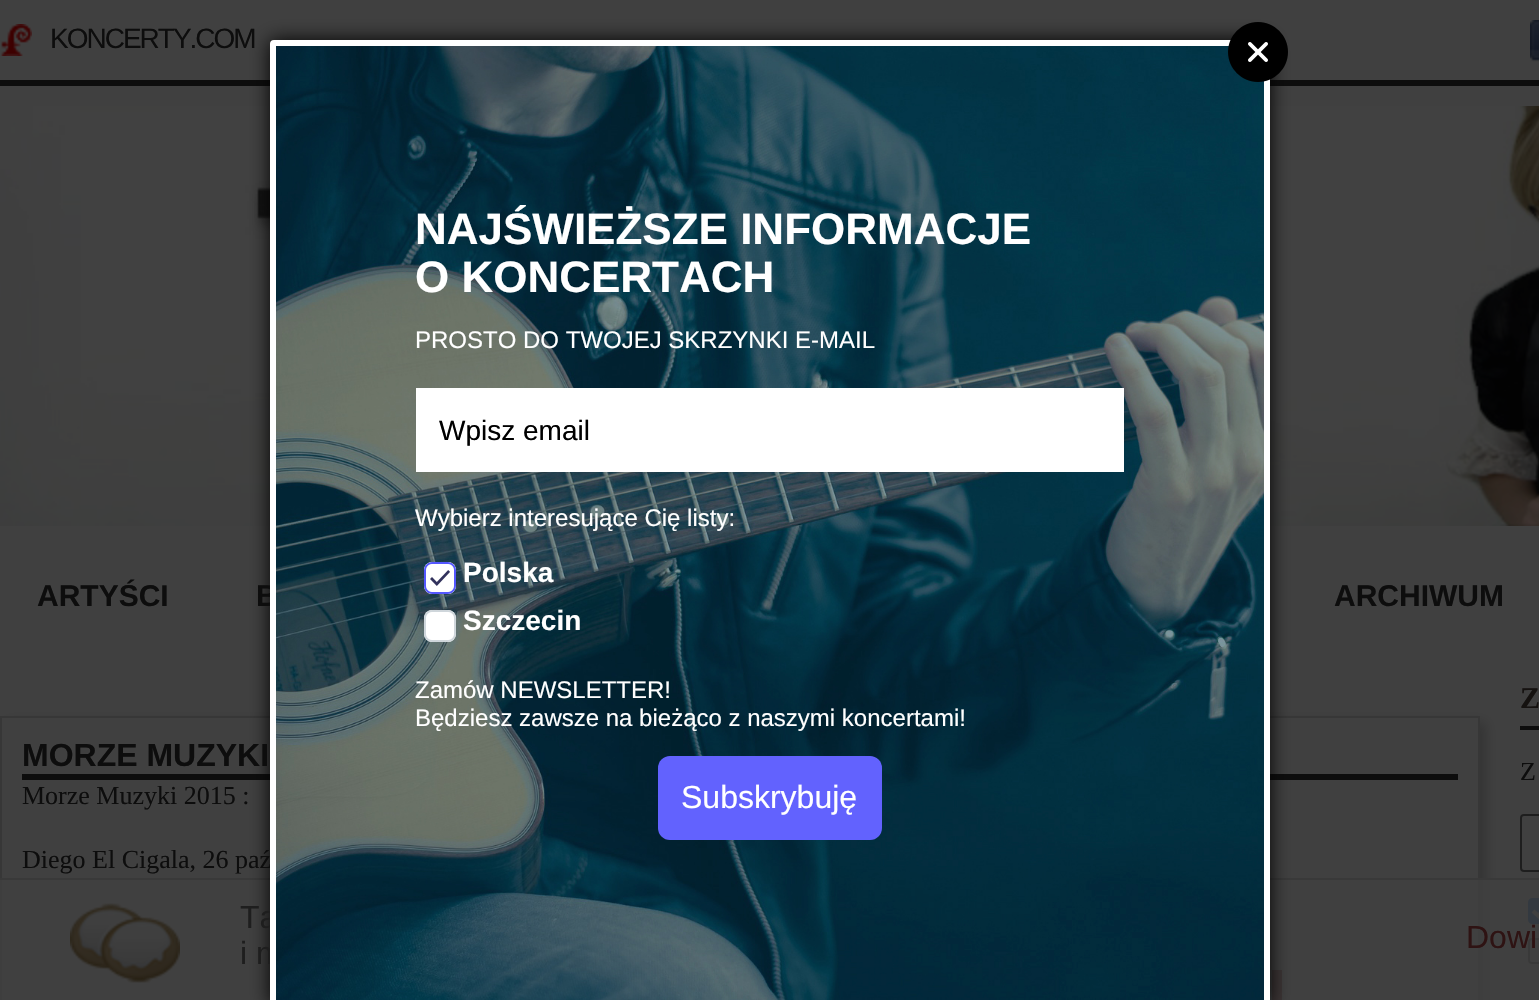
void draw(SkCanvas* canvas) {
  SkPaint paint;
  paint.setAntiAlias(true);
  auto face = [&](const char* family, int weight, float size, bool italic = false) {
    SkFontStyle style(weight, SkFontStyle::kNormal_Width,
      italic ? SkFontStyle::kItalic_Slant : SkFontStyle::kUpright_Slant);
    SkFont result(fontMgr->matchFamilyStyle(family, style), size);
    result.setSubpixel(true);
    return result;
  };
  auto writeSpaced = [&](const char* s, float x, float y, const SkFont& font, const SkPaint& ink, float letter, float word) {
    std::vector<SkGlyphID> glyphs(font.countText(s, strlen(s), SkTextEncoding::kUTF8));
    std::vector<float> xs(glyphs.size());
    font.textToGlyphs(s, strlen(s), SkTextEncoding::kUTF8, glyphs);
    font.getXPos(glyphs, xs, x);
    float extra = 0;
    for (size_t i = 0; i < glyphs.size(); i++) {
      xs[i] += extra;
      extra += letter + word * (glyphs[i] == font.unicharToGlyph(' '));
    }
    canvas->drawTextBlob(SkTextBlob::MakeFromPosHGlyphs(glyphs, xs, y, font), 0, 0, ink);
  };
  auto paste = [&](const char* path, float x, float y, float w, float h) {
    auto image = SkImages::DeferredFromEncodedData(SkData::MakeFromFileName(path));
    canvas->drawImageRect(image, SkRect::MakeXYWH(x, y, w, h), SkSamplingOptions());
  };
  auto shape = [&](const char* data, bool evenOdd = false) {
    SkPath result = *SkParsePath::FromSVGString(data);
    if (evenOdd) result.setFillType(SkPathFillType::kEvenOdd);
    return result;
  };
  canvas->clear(0xff404040);
  paint.setColor(0xff0d0d0d);
  canvas->drawRect(SkRect::MakeXYWH(0, 80, 1539, 6), paint);
  paste("img/1.png", 0, 24, 32, 32);
  paste("img/2.png", 1530, 20, 9, 42);
  paste("img/3.png", 0, 106, 1539, 420);
  canvas->save();
  canvas->clipPath(shape("M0 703H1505V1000H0ZM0 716H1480V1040H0Z", true), true);
  paint.setColor(0xff333333);
  paint.setMaskFilter(SkMaskFilter::MakeBlur(kNormal_SkBlurStyle, 6));
  canvas->drawRect(SkRect::MakeXYWH(6, 722, 1480, 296), paint);
  paint.setMaskFilter(nullptr);
  canvas->restore();
  paint.setStroke(true);
  paint.setStrokeWidth(2);
  paint.setColor(0xff373737);
  canvas->drawRect(SkRect::MakeXYWH(1, 717, 1478, 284), paint);
  paint.setStroke(false);
  {
    const struct { float x, y, w, h; SkColor color; } items[] = {
      {22, 774, 1436, 6, 0xff0d0d0d},
      {1272, 970, 10, 30, 0xff290808},
      {1520, 726, 19, 4, 0xff0d0d0d},
    };
    for (auto [x, y, w, h, color] : items) {
      paint.setColor(color);
      canvas->drawRect(SkRect::MakeXYWH(x, y, w, h), paint);
    }
  }
  paint.setStroke(true);
  paint.setColor(0xff1e1e1e);
  canvas->drawRoundRect(SkRect::MakeXYWH(1521, 815, 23, 56), 3, 3, paint);
  paint.setStroke(false);
  paint.setColor(0xff001d40);
  canvas->drawPath(shape("M1532 898H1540V924H1532C1530 924 1528 922 1528 920V902C1528 900 1530 898 1532 898Z"), paint);
  paint.setStroke(true);
  paint.setStrokeWidth(4.2f);
  paint.setColor(0xff404040);
  canvas->drawPath(shape("M1533 911L1538.5 916L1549 903"), paint);
  paint.setStrokeWidth(2);
  paint.setColor(0xff1e1e1e);
  canvas->drawRoundRect(SkRect::MakeXYWH(1529, 939, 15, 24), 3, 3, paint);
  paint.setStroke(false);
  paint.setColor(0xcc404040);
  canvas->drawRect(SkRect::MakeXYWH(0, 878, 1539, 122), paint);
  paint.setColor(0xcc373737);
  canvas->drawRect(SkRect::MakeXYWH(0, 878, 1539, 2), paint);
  paint.setColor(0xff000000);
  paint.setMaskFilter(SkMaskFilter::MakeBlur(kNormal_SkBlurStyle, 10));
  canvas->drawRoundRect(SkRect::MakeXYWH(270, 40, 1000, 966), 4, 4, paint);
  paint.setMaskFilter(nullptr);
  paste("img/8.png", 70, 903, 110, 80);
  auto f0 = face("Liberation Sans", 400, 28);
  paint.setColor(0xff0d0d0d);
  writeSpaced("KONCERTY.COM", 50, 48, f0, paint, -2, 0);
  auto f1 = face("Liberation Sans", 700, 30);
  {
    const struct { const char* s; float x, y; } items[] = {
      {"ARTYŚCI", 37, 606},
      {"B", 256, 606},
      {"ARCHIWUM", 1334, 606},
    };
    for (auto [s, x, y] : items) {
      canvas->drawString(s, x, y, f1, paint);
    }
  }
  auto f2 = face("Liberation Sans", 700, 32);
  canvas->drawString("MORZE MUZYKI", 22, 766, f2, paint);
  auto f3 = face("Liberation Serif", 400, 26);
  canvas->drawString("Morze Muzyki 2015 :", 22, 804, f3, paint);
  canvas->drawString("Diego El Cigala, 26 paź", 22, 868, f3, paint);
  auto f4 = face("Liberation Serif", 700, 30);
  paint.setColor(0xff151210);
  canvas->drawString("Z", 1520, 708, f4, paint);
  paint.setColor(0xff0d0d0d);
  canvas->drawString("Z", 1520, 780, f3, paint);
  auto f5 = face("Liberation Sans", 400, 32);
  paint.setColor(0xff1e1e1e);
  canvas->drawString("Ta", 240, 928, f5, paint);
  paint.setColor(0xff2e1313);
  canvas->drawString("Dowi", 1466, 948, f5, paint);
  paint.setColor(0xff1e1e1e);
  canvas->drawString("i m", 240, 964, f5, paint);
  paste("img/4.png", 276, 46, 988, 954);
  paint.setStroke(true);
  paint.setStrokeWidth(6);
  paint.setColor(0xffffffff);
  canvas->drawRoundRect(SkRect::MakeXYWH(273, 43, 994, 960), 1, 1, paint);
  paste("img/5.png", 1228, 22, 60, 60);
  auto f6 = face("Liberation Sans", 700, 28);
  paint.setStroke(false);
  canvas->drawString("Szczecin", 463, 630, f6, paint);
  canvas->drawRoundRect(SkRect::MakeXYWH(424, 610, 32, 32), 8, 8, paint);
  paste("img/7.png", 424, 610, 32, 32);
  canvas->drawString("Polska", 463, 582, f6, paint);
  canvas->drawRoundRect(SkRect::MakeXYWH(424, 562, 32, 32), 8, 8, paint);
  paste("img/6.png", 424, 562, 32, 32);
  paint.setColor(0xff6262fe);
  canvas->drawRoundRect(SkRect::MakeXYWH(658, 756, 224, 84), 12, 12, paint);
  paint.setColor(0xffffffff);
  canvas->drawString("Subskrybuję", 681, 808, f5, paint);
  auto f7 = face("Liberation Sans", 400, 24);
  {
    const struct { const char* s; float x, y; } items[] = {
      {"Będziesz zawsze na bieżąco z naszymi koncertami!", 415, 726},
      {"Zamów NEWSLETTER!", 415, 698},
      {"Wybierz interesujące Cię listy:", 415, 526},
    };
    for (auto [s, x, y] : items) {
      canvas->drawString(s, x, y, f7, paint);
    }
  }
  canvas->drawRect(SkRect::MakeXYWH(416, 388, 708, 84), paint);
  paint.setColor(0xff000000);
  canvas->drawString("Wpisz email", 439, 440, f0, paint);
  paint.setColor(0xffffffff);
  canvas->drawString("PROSTO DO TWOJEJ SKRZYNKI E-MAIL", 415, 348, f7, paint);
  auto f8 = face("Liberation Sans", 700, 44);
  canvas->drawString("O KONCERTACH", 415, 292, f8, paint);
  canvas->drawString("NAJŚWIEŻSZE INFORMACJE", 415, 244, f8, paint);
}
